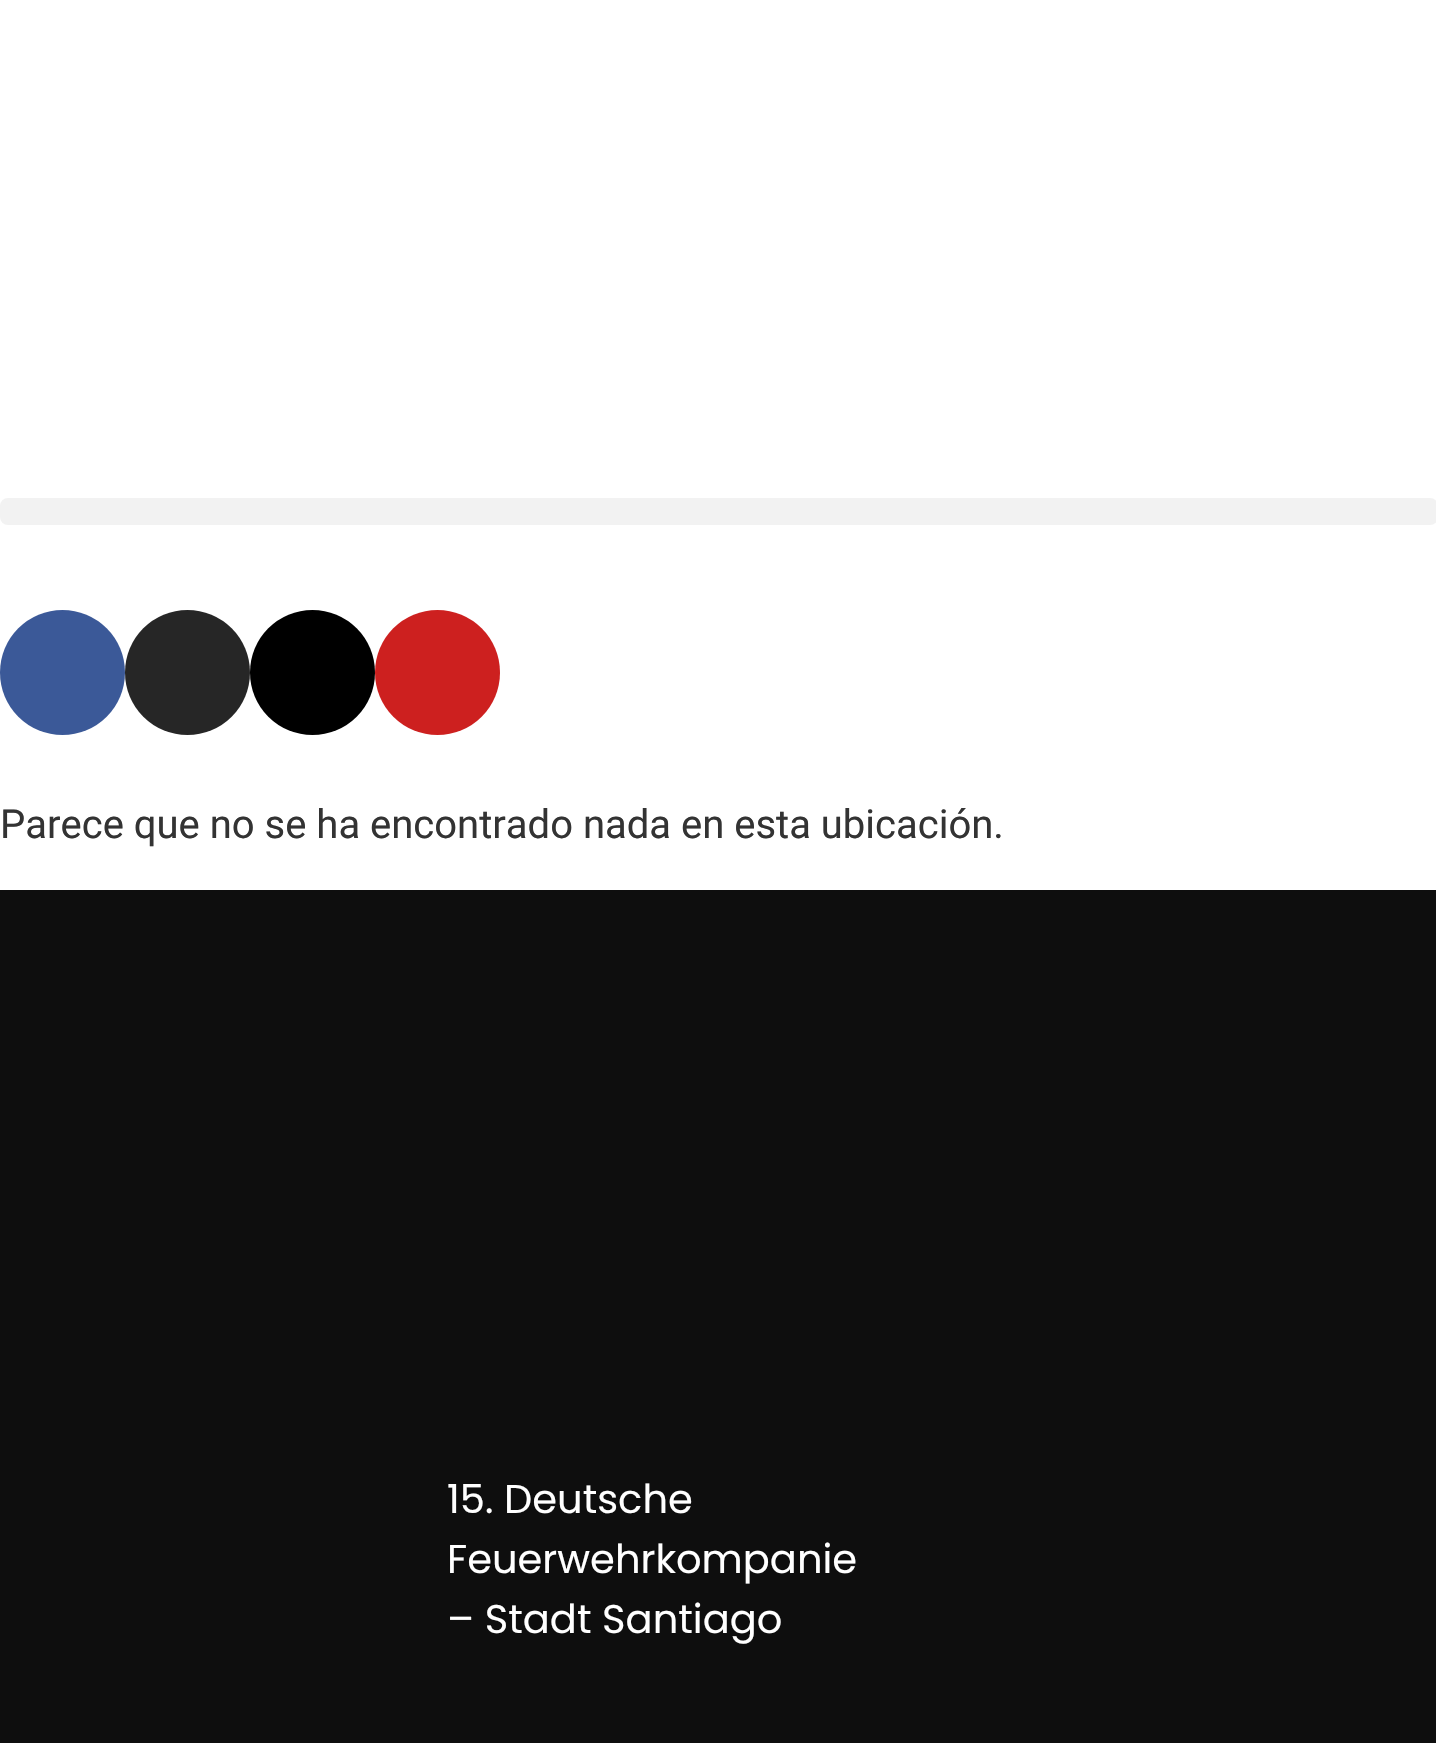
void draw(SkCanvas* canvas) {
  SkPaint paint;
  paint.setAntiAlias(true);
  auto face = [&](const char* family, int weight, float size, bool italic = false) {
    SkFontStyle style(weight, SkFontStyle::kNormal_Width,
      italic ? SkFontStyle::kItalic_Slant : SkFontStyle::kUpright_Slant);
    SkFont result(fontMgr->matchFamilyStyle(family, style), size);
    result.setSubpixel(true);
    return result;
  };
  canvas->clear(0xffffffff);
  paint.setColor(0xfff2f2f2);
  canvas->drawRoundRect(SkRect::MakeXYWH(0, 498, 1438, 27), 8, 8, paint);
  paint.setColor(0xff3b5998);
  canvas->drawCircle(62.5f, 672.5f, 62.5f, paint);
  paint.setColor(0xff262626);
  canvas->drawCircle(187.5f, 672.5f, 62.5f, paint);
  paint.setColor(0xff000000);
  canvas->drawCircle(312.5f, 672.5f, 62.5f, paint);
  paint.setColor(0xffcd201f);
  canvas->drawCircle(437.5f, 672.5f, 62.5f, paint);
  paint.setColor(0xff0e0e0e);
  canvas->drawRect(SkRect::MakeXYWH(0, 890, 1436, 853), paint);
  auto f0 = face("Roboto", 400, 40);
  paint.setColor(0xff333333);
  canvas->drawString("Parece que no se ha encontrado nada en esta ubicación.", 0, 838, f0, paint);
  auto f1 = face("Poppins", 400, 40);
  paint.setColor(0xffffffff);
  {
    const struct { const char* s; float x, y; } items[] = {
      {"15. Deutsche", 447, 1513},
      {"Feuerwehrkompanie", 447, 1573},
      {"– Stadt Santiago", 447, 1633},
    };
    for (auto [s, x, y] : items) {
      canvas->drawString(s, x, y, f1, paint);
    }
  }
}
